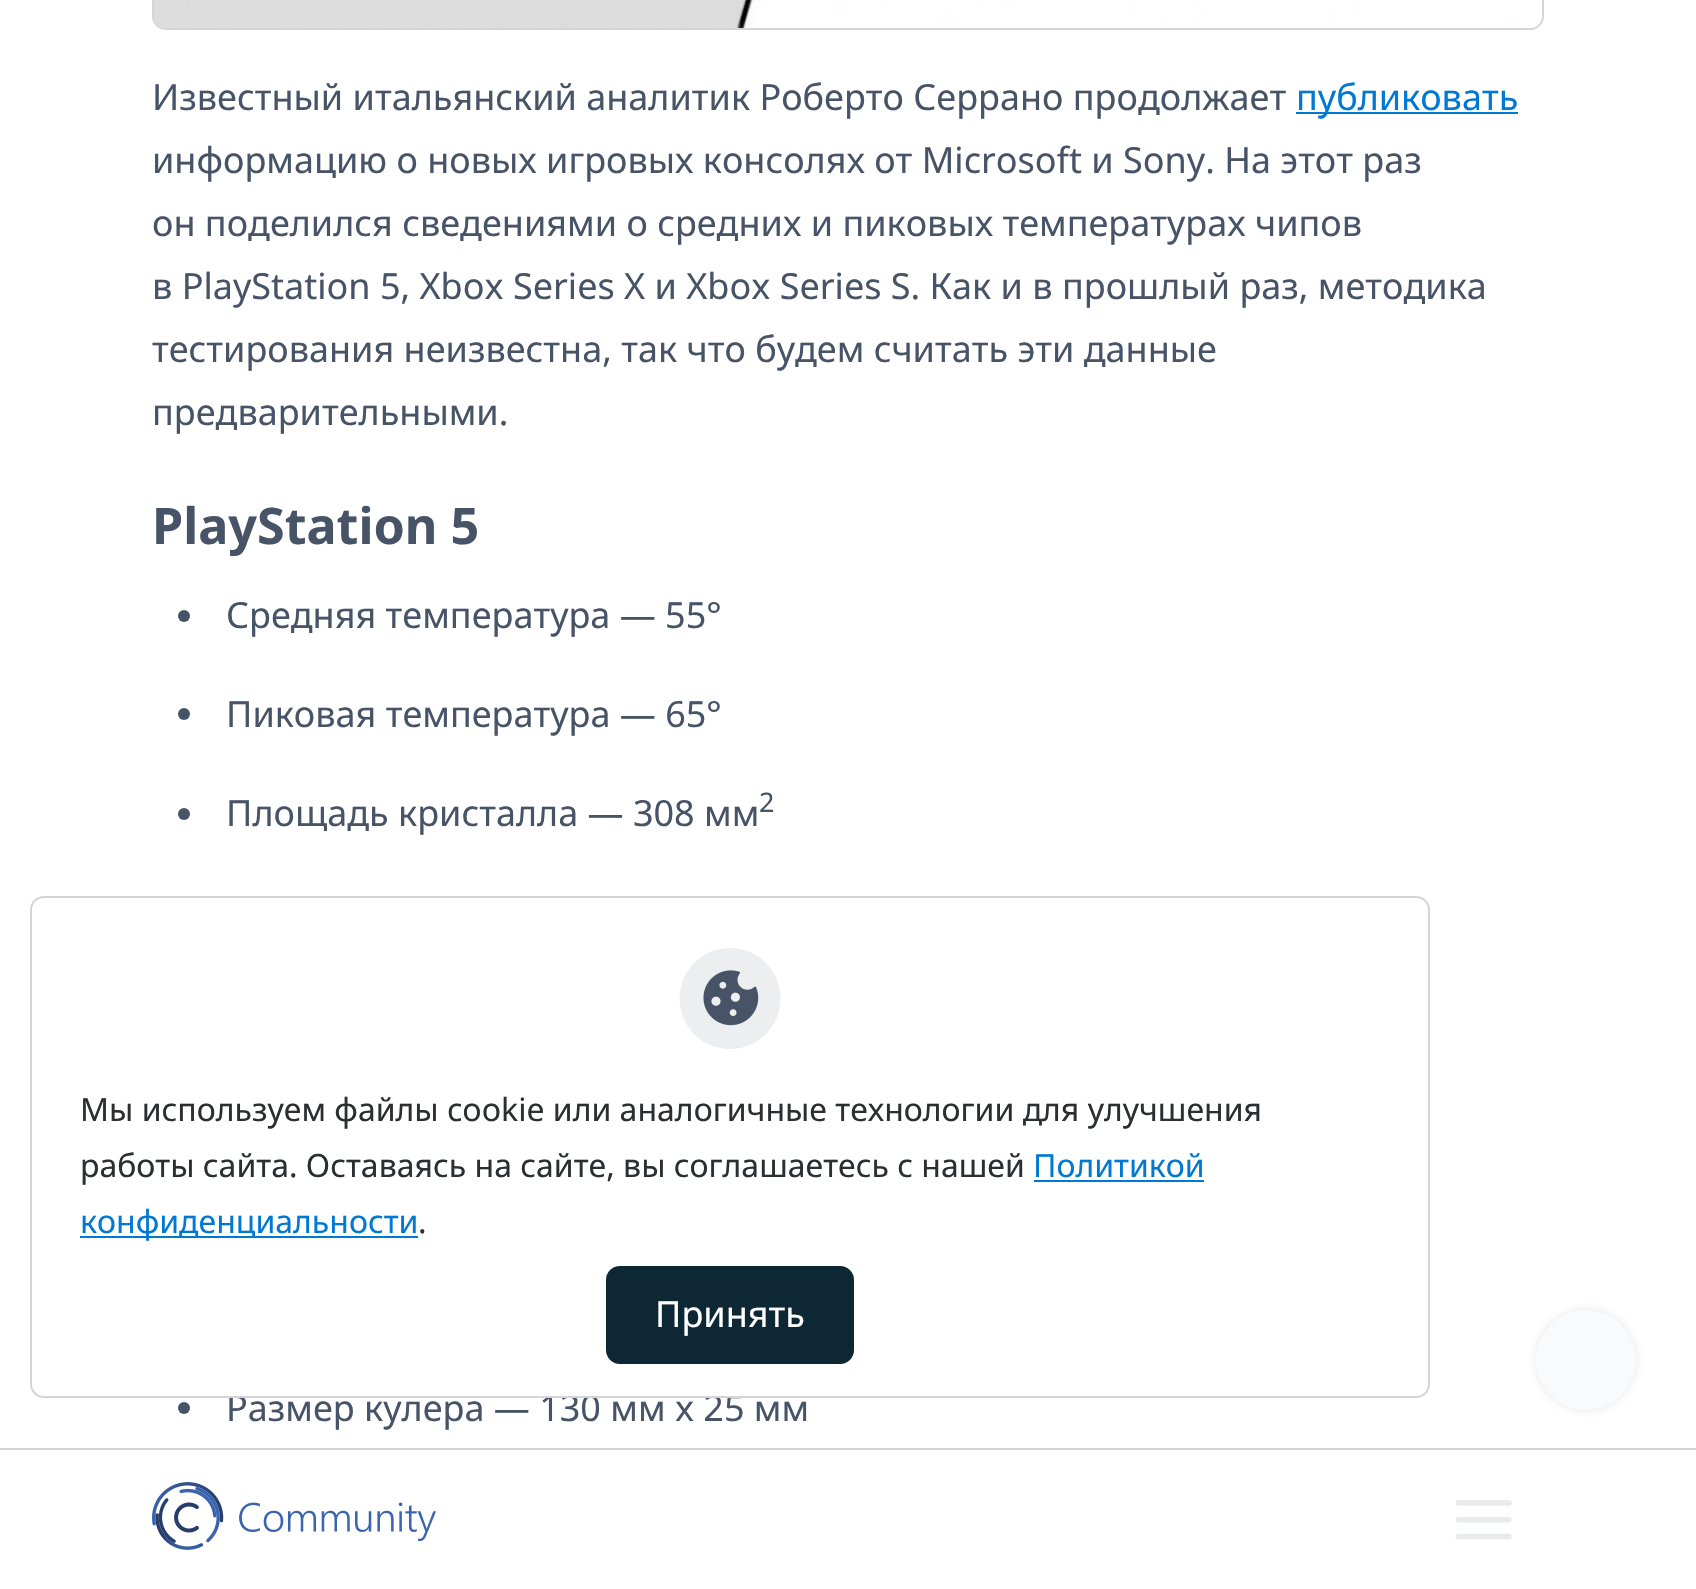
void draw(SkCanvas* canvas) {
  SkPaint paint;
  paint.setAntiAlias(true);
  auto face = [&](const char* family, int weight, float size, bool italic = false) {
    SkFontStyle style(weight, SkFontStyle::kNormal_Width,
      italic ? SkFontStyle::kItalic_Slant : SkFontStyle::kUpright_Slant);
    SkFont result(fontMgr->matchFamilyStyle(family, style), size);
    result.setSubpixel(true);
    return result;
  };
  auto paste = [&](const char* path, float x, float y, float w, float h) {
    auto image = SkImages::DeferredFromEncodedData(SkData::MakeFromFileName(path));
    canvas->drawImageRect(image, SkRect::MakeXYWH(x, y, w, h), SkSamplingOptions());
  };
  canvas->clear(0xffffffff);
  paint.setStroke(true);
  paint.setStrokeWidth(2);
  paint.setColor(0xffd3d5d7);
  canvas->drawRoundRect(SkRect::MakeXYWH(153, -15, 1390, 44), 13, 13, paint);
  paste("img/1.png", 154, 0, 1388, 28);
  paint.setStroke(false);
  paint.setColor(0xff0078d4);
  canvas->drawRect(SkRect::MakeXYWH(1296, 112, 222, 2), paint);
  paint.setColor(0xff475467);
  canvas->drawCircle(184, 616, 6, paint);
  canvas->drawCircle(184, 714, 6, paint);
  canvas->drawCircle(184, 814, 6, paint);
  canvas->drawCircle(184, 1408, 6, paint);
  paint.setColor(0x33808080);
  paint.setMaskFilter(SkMaskFilter::MakeBlur(kNormal_SkBlurStyle, 5));
  canvas->drawRoundRect(SkRect::MakeXYWH(1536, 1310, 100, 100), 50, 50, paint);
  paint.setMaskFilter(nullptr);
  paint.setColor(0xfff8fafc);
  canvas->drawCircle(1586, 1360, 50, paint);
  paint.setColor(0xffd3d5d7);
  canvas->drawRect(SkRect::MakeXYWH(0, 1448, 1696, 2), paint);
  paste("img/3.png", 152, 1482, 284, 68);
  paste("img/4.png", 1455, 1500, 57, 40);
  auto f0 = face("Noto Sans", 400, 36);
  paint.setColor(0xff475467);
  canvas->drawString("Известный итальянский аналитик Роберто Серрано продолжает", 152, 110, f0, paint);
  paint.setColor(0xff0078d4);
  canvas->drawString("публиковать", 1296, 110, f0, paint);
  paint.setColor(0xff475467);
  {
    const struct { const char* s; float x, y; } items[] = {
      {"информацию о новых игровых консолях от Microsoft и Sony. На этот раз", 152, 173},
      {"он поделился сведениями о средних и пиковых температурах чипов", 152, 236},
      {"в PlayStation 5, Xbox Series X и Xbox Series S. Как и в прошлый раз, методика", 152, 299},
      {"тестирования неизвестна, так что будем считать эти данные", 152, 362},
      {"предварительными.", 152, 425},
    };
    for (auto [s, x, y] : items) {
      canvas->drawString(s, x, y, f0, paint);
    }
  }
  auto f1 = face("Noto Sans", 700, 50.25f);
  canvas->drawString("PlayStation 5", 152, 544, f1, paint);
  {
    const struct { const char* s; float x, y; } items[] = {
      {"Средняя температура — 55°", 226, 628},
      {"Пиковая температура — 65°", 226, 727},
      {"Площадь кристалла — 308 мм", 226, 826},
    };
    for (auto [s, x, y] : items) {
      canvas->drawString(s, x, y, f0, paint);
    }
  }
  auto f2 = face("Noto Sans", 400, 27);
  canvas->drawString("2", 759, 812, f2, paint);
  canvas->drawString("Размер кулера — 130 мм x 25 мм", 226, 1421, f0, paint);
  paint.setColor(0xffffffff);
  canvas->drawRoundRect(SkRect::MakeXYWH(31, 897, 1398, 500), 13, 13, paint);
  paint.setStroke(true);
  paint.setColor(0xffd3d5d7);
  canvas->drawRoundRect(SkRect::MakeXYWH(31, 897, 1398, 500), 13, 13, paint);
  paste("img/2.png", 679, 948, 102, 101);
  auto f3 = face("Noto Sans", 400, 32);
  paint.setStroke(false);
  paint.setColor(0xff2b2f32);
  canvas->drawString("Мы используем файлы cookie или аналогичные технологии для улучшения", 80, 1121, f3, paint);
  canvas->drawString("работы сайта. Оставаясь на сайте, вы соглашаетесь с нашей", 80, 1177, f3, paint);
  paint.setColor(0xff0078d4);
  canvas->drawString("Политикой", 1033, 1177, f3, paint);
  canvas->drawRect(SkRect::MakeXYWH(1034, 1180, 170, 2), paint);
  canvas->drawRect(SkRect::MakeXYWH(80, 1236, 338, 2), paint);
  canvas->drawString("конфиденциальности", 80, 1233, f3, paint);
  paint.setColor(0xff2b2f32);
  canvas->drawString(".", 418, 1233, f3, paint);
  paint.setColor(0xff0d2735);
  canvas->drawRoundRect(SkRect::MakeXYWH(607, 1267, 246, 96), 13, 13, paint);
  paint.setStroke(true);
  canvas->drawRoundRect(SkRect::MakeXYWH(607, 1267, 246, 96), 13, 13, paint);
  paint.setStroke(false);
  paint.setColor(0xffffffff);
  canvas->drawString("Принять", 655, 1327, f0, paint);
}
